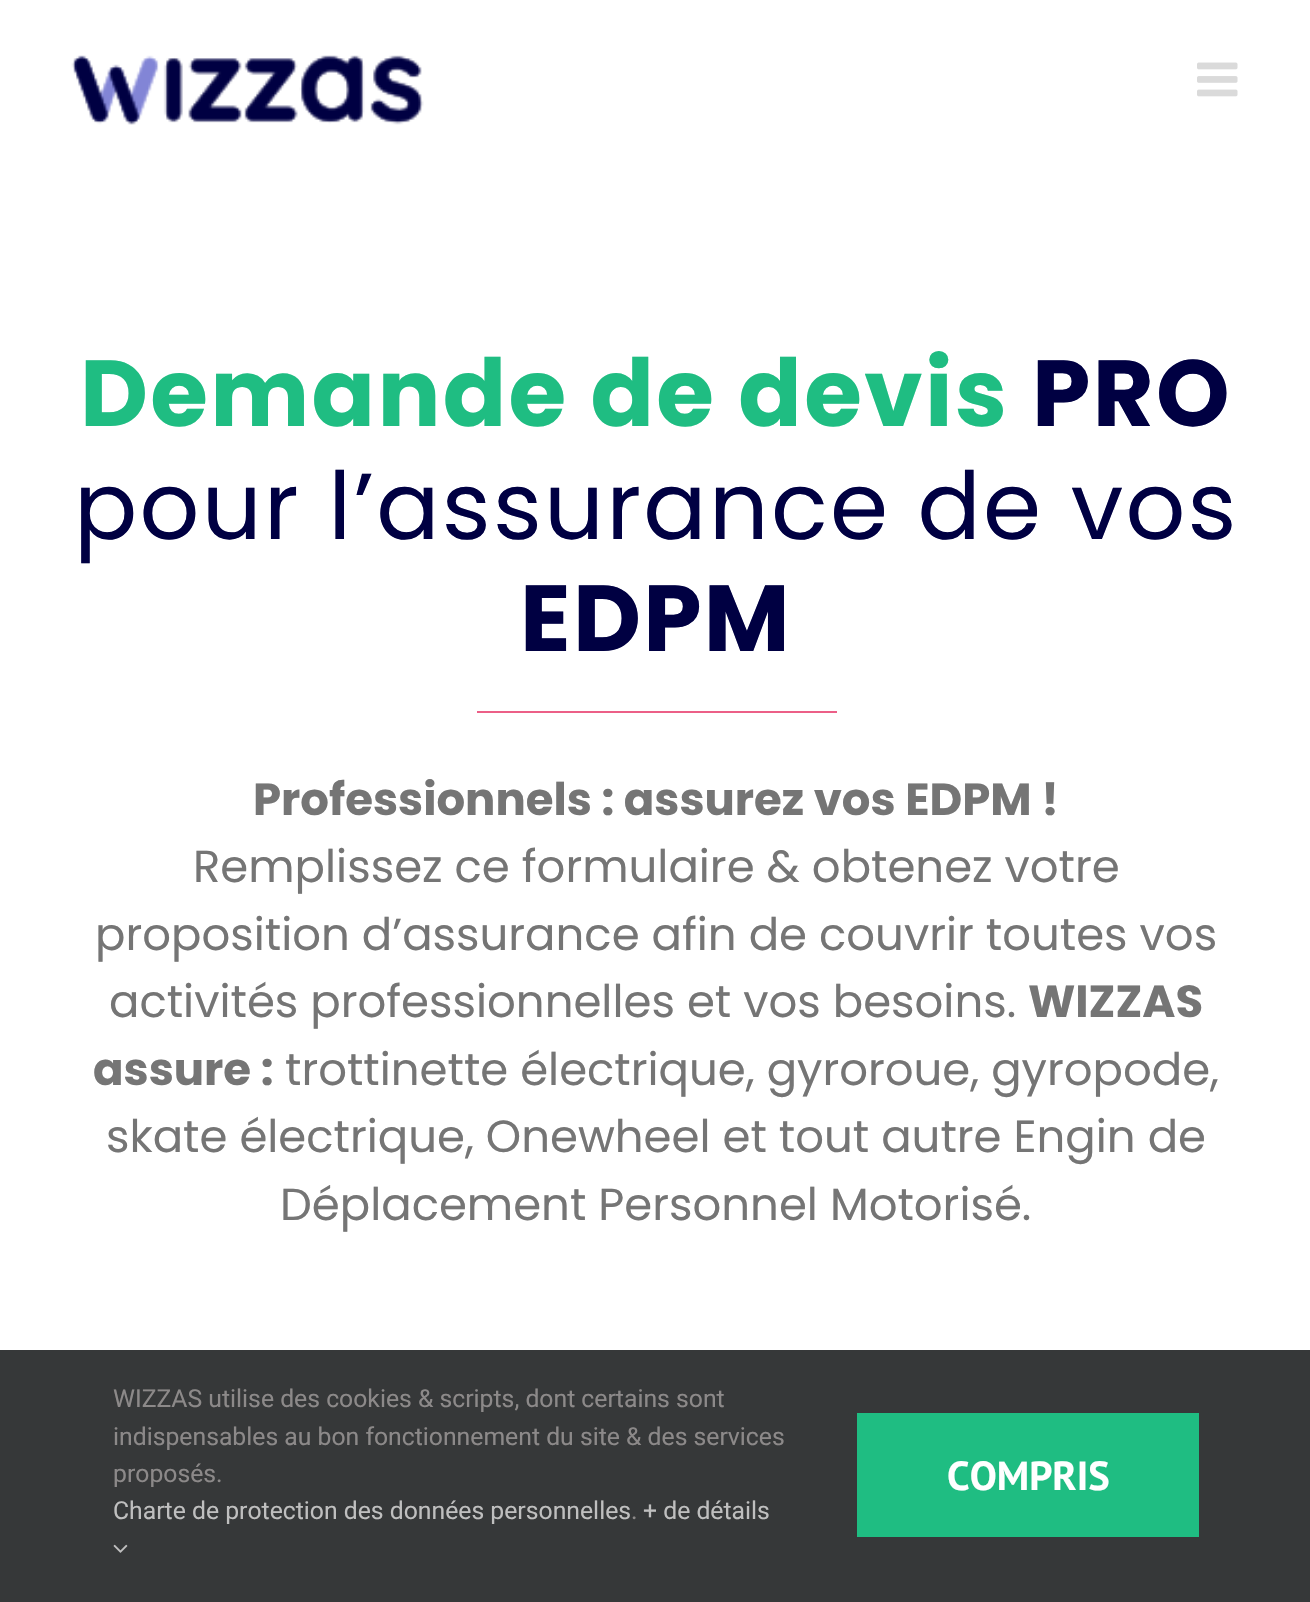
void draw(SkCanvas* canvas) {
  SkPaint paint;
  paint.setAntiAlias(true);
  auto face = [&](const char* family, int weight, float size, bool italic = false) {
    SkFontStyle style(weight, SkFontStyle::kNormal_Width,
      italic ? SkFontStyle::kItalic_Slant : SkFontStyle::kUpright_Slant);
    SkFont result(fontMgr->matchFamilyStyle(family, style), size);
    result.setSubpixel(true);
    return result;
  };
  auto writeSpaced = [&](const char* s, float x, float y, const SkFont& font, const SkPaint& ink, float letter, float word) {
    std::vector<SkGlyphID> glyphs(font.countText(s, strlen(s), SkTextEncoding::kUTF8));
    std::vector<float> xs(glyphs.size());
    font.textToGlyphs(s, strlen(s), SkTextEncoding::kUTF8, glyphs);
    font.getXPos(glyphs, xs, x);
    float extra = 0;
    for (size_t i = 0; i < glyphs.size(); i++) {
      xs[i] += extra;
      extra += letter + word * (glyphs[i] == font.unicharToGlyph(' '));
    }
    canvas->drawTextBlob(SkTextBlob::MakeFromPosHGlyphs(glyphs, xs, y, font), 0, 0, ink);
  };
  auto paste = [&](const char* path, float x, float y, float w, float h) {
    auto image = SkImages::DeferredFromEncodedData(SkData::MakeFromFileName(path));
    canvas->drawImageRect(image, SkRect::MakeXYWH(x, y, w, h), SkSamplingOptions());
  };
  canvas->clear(0xffffffff);
  paste("img/1.png", 71, 55, 353, 70);
  paste("img/2.png", 1197, 62, 41, 35);
  paint.setColor(0xffec5f87);
  canvas->drawRect(SkRect::MakeXYWH(477, 711, 360, 2), paint);
  paint.setColor(0xff363839);
  canvas->drawRect(SkRect::MakeXYWH(0, 1350, 1310, 252), paint);
  paste("img/3.png", 113, 1544, 15, 9);
  paint.setColor(0xff1fbd82);
  canvas->drawRect(SkRect::MakeXYWH(857, 1413, 342, 124), paint);
  auto f0 = face("Poppins", 700, 93.6f);
  writeSpaced("Demande de devis", 80, 426, f0, paint, 2.25f, 0);
  paint.setColor(0xff000042);
  writeSpaced("PRO", 1032, 426, f0, paint, 2.25f, 0);
  auto f1 = face("Poppins", 400, 93.6f);
  writeSpaced("pour l’assurance de vos", 74, 539, f1, paint, 2.25f, 0);
  writeSpaced("EDPM", 520, 651, f0, paint, 2.25f, 0);
  auto f2 = face("Poppins", 700, 45);
  paint.setColor(0xff757575);
  canvas->drawString("Professionnels : assurez vos EDPM !", 253, 815, f2, paint);
  auto f3 = face("Poppins", 400, 45);
  {
    const struct { const char* s; float x, y; } items[] = {
      {"Remplissez ce formulaire & obtenez votre", 193, 882},
      {"proposition d’assurance afin de couvrir toutes vos", 95, 950},
      {"activités professionnelles et vos besoins.", 109, 1017},
    };
    for (auto [s, x, y] : items) {
      canvas->drawString(s, x, y, f3, paint);
    }
  }
  canvas->drawString("WIZZAS", 1028, 1017, f2, paint);
  canvas->drawString("assure :", 93, 1085, f2, paint);
  {
    const struct { const char* s; float x, y; } items[] = {
      {"trottinette électrique, gyroroue, gyropode,", 285, 1085},
      {"skate électrique, Onewheel et tout autre Engin de", 106, 1152},
      {"Déplacement Personnel Motorisé.", 280, 1220},
    };
    for (auto [s, x, y] : items) {
      canvas->drawString(s, x, y, f3, paint);
    }
  }
  auto f4 = face("Roboto", 400, 24.75f);
  paint.setColor(0xff8c8989);
  {
    const struct { const char* s; float x, y; } items[] = {
      {"WIZZAS utilise des cookies & scripts, dont certains sont", 113, 1407},
      {"indispensables au bon fonctionnement du site & des services", 113, 1445},
      {"proposés.", 113, 1482},
    };
    for (auto [s, x, y] : items) {
      canvas->drawString(s, x, y, f4, paint);
    }
  }
  paint.setColor(0xffbfbfbf);
  canvas->drawString("Charte de protection des données personnelles", 113, 1519, f4, paint);
  paint.setColor(0xff8c8989);
  canvas->drawString(".", 631, 1519, f4, paint);
  paint.setColor(0xffbfbfbf);
  canvas->drawString("+ de détails", 643, 1519, f4, paint);
  auto f5 = face("PT Sans", 700, 40.5f);
  paint.setColor(0xffffffff);
  canvas->drawString("COMPRIS", 947, 1490, f5, paint);
}
